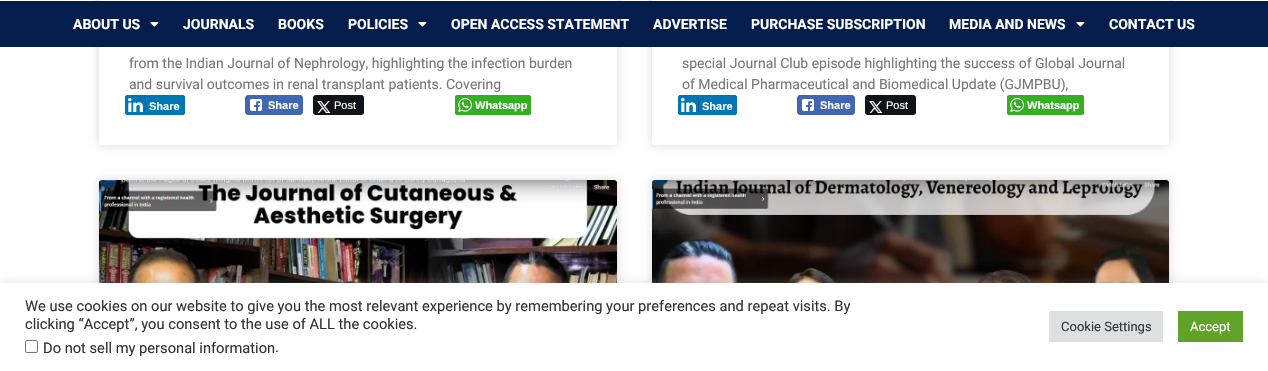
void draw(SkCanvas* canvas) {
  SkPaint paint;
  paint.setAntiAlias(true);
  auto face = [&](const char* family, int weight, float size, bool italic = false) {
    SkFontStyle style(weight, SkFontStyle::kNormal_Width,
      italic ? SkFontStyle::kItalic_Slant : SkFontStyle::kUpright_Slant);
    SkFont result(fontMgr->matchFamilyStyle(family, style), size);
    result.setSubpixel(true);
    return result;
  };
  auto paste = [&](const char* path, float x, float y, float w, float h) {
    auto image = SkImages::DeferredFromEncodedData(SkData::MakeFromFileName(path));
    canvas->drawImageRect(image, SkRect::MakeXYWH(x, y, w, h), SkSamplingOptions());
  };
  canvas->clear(0xffffffff);
  paint.setColor(0x26000000);
  paint.setMaskFilter(SkMaskFilter::MakeBlur(kNormal_SkBlurStyle, 5));
  canvas->drawRoundRect(SkRect::MakeXYWH(99, -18, 518, 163), 3, 3, paint);
  paint.setMaskFilter(nullptr);
  paint.setColor(0xffffffff);
  canvas->drawRoundRect(SkRect::MakeXYWH(99, -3, 518, 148), 3, 3, paint);
  paint.setColor(0x26000000);
  paint.setMaskFilter(SkMaskFilter::MakeBlur(kNormal_SkBlurStyle, 5));
  canvas->drawRoundRect(SkRect::MakeXYWH(652, -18, 517, 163), 3, 3, paint);
  paint.setMaskFilter(nullptr);
  paint.setColor(0xffffffff);
  canvas->drawRoundRect(SkRect::MakeXYWH(652, -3, 517, 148), 3, 3, paint);
  paint.setColor(0xff031e4c);
  canvas->drawRect(SkRect::MakeXYWH(0, 1, 1268, 46), paint);
  paste("img/1.png", 150, 22, 9, 5);
  paste("img/1.png", 418, 22, 9, 5);
  paste("img/1.png", 1076, 22, 9, 5);
  paint.setColor(0xff0077b5);
  canvas->drawRoundRect(SkRect::MakeXYWH(125.5f, 95.5f, 59, 19), 1.5f, 1.5f, paint);
  paint.setStroke(true);
  paint.setStrokeWidth(1);
  canvas->drawRoundRect(SkRect::MakeXYWH(125.5f, 95.5f, 59, 19), 1.5f, 1.5f, paint);
  paint.setStroke(false);
  paint.setColor(0xff066094);
  canvas->drawRect(SkRect::MakeXYWH(145, 97, 1, 17), paint);
  paste("img/2.png", 128, 98, 15, 14);
  paint.setColor(0xff4267b2);
  canvas->drawRoundRect(SkRect::MakeXYWH(245.5f, 95.5f, 57, 19), 2.5f, 2.5f, paint);
  paint.setStroke(true);
  canvas->drawRoundRect(SkRect::MakeXYWH(245.5f, 95.5f, 57, 19), 2.5f, 2.5f, paint);
  paste("img/3.png", 250, 99, 12, 12);
  paint.setStroke(false);
  paint.setColor(0xff0f1419);
  canvas->drawRoundRect(SkRect::MakeXYWH(313, 95, 51, 20), 3, 3, paint);
  paste("img/4.png", 317, 101, 14, 12);
  paint.setColor(0xff34af23);
  canvas->drawRoundRect(SkRect::MakeXYWH(455, 95, 76, 20), 2, 2, paint);
  paste("img/5.png", 458, 98, 14, 14);
  paint.setColor(0xff0077b5);
  canvas->drawRoundRect(SkRect::MakeXYWH(678.5f, 95.5f, 58, 19), 1.5f, 1.5f, paint);
  paint.setStroke(true);
  canvas->drawRoundRect(SkRect::MakeXYWH(678.5f, 95.5f, 58, 19), 1.5f, 1.5f, paint);
  paint.setStroke(false);
  paint.setColor(0xff066094);
  canvas->drawRect(SkRect::MakeXYWH(698, 97, 1, 17), paint);
  paste("img/2.png", 681, 98, 15, 14);
  paint.setColor(0xff4267b2);
  canvas->drawRoundRect(SkRect::MakeXYWH(797.5f, 95.5f, 57, 19), 2.5f, 2.5f, paint);
  paint.setStroke(true);
  canvas->drawRoundRect(SkRect::MakeXYWH(797.5f, 95.5f, 57, 19), 2.5f, 2.5f, paint);
  paste("img/3.png", 802, 99, 12, 12);
  paint.setStroke(false);
  paint.setColor(0xff0f1419);
  canvas->drawRoundRect(SkRect::MakeXYWH(865, 95, 51, 20), 3, 3, paint);
  paste("img/4.png", 869, 101, 14, 12);
  paint.setColor(0xff34af23);
  canvas->drawRoundRect(SkRect::MakeXYWH(1007, 95, 77, 20), 2, 2, paint);
  paste("img/5.png", 1010, 98, 14, 14);
  paint.setColor(0x26000000);
  paint.setMaskFilter(SkMaskFilter::MakeBlur(kNormal_SkBlurStyle, 5));
  canvas->drawRoundRect(SkRect::MakeXYWH(99, 180, 518, 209), 3, 3, paint);
  paint.setMaskFilter(nullptr);
  paste("img/6.png", 99, 180, 518, 103);
  {
    const SkColor colors[] = {0x59000000, 0x00000000};
    const float stops[] = {0, 0.75f};
    const SkPoint ends[] = {{358, 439}, {358, 180}};
    paint.setShader(SkGradientShader::MakeLinear(ends, colors, stops, 2, SkTileMode::kClamp));
    paint.setAlpha(255);
  }
  canvas->drawRect(SkRect::MakeXYWH(99, 257, 518, 26), paint);
  paint.setShader(nullptr);
  paint.setColor(0x26000000);
  paint.setMaskFilter(SkMaskFilter::MakeBlur(kNormal_SkBlurStyle, 5));
  canvas->drawRoundRect(SkRect::MakeXYWH(652, 180, 517, 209), 3, 3, paint);
  paint.setMaskFilter(nullptr);
  paste("img/7.png", 652, 180, 517, 103);
  {
    const SkColor colors[] = {0x59000000, 0x00000000};
    const float stops[] = {0, 0.75f};
    const SkPoint ends[] = {{911, 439}, {911, 180}};
    paint.setShader(SkGradientShader::MakeLinear(ends, colors, stops, 2, SkTileMode::kClamp));
    paint.setAlpha(255);
  }
  canvas->drawRect(SkRect::MakeXYWH(661, 257, 482, 26), paint);
  paint.setShader(nullptr);
  paint.setColor(0x4dacabab);
  paint.setMaskFilter(SkMaskFilter::MakeBlur(kNormal_SkBlurStyle, 5));
  canvas->drawRect(SkRect::MakeXYWH(0, 282, 1268, 88), paint);
  paint.setMaskFilter(nullptr);
  paint.setColor(0xffffffff);
  canvas->drawRect(SkRect::MakeXYWH(0, 283, 1268, 88), paint);
  paint.setStroke(true);
  paint.setColor(0xff767676);
  canvas->drawRoundRect(SkRect::MakeXYWH(25.5f, 340.5f, 12, 12), 1.5f, 1.5f, paint);
  paint.setStroke(false);
  paint.setColor(0xffdedfe0);
  canvas->drawRect(SkRect::MakeXYWH(1049, 311, 114, 31), paint);
  paint.setColor(0xff61a229);
  canvas->drawRect(SkRect::MakeXYWH(1178, 311, 65, 31), paint);
  auto f0 = face("Roboto", 700, 14);
  paint.setColor(0xffffffff);
  {
    const struct { const char* s; float x, y; } items[] = {
      {"ABOUT US", 73, 29},
      {"JOURNALS", 183, 29},
      {"BOOKS", 278, 29},
      {"POLICIES", 348, 29},
      {"OPEN ACCESS STATEMENT", 451, 29},
      {"ADVERTISE", 653, 29},
      {"PURCHASE SUBSCRIPTION", 751, 29},
      {"MEDIA AND NEWS", 949, 29},
      {"CONTACT US", 1109, 29},
    };
    for (auto [s, x, y] : items) {
      canvas->drawString(s, x, y, f0, paint);
    }
  }
  auto f1 = face("Roboto", 400, 14);
  paint.setColor(0xff777777);
  canvas->drawString("from the Indian Journal of Nephrology, highlighting the infection burden", 129, 68, f1, paint);
  canvas->drawString("and survival outcomes in renal transplant patients. Covering", 129, 89, f1, paint);
  auto f2 = face("Liberation Sans", 700, 11);
  paint.setColor(0xffffffff);
  canvas->drawString("Share", 149, 110, f2, paint);
  canvas->drawString("Share", 268, 109, f2, paint);
  auto f3 = face("Liberation Sans", 400, 11);
  canvas->drawString("Post", 334, 109, f3, paint);
  canvas->drawString("Whatsapp", 475, 109, f2, paint);
  paint.setColor(0xff777777);
  canvas->drawString("special Journal Club episode highlighting the success of Global Journal", 682, 68, f1, paint);
  canvas->drawString("of Medical Pharmaceutical and Biomedical Update (GJMPBU),", 682, 89, f1, paint);
  paint.setColor(0xffffffff);
  canvas->drawString("Share", 702, 110, f2, paint);
  canvas->drawString("Share", 820, 109, f2, paint);
  canvas->drawString("Post", 886, 109, f3, paint);
  canvas->drawString("Whatsapp", 1027, 109, f2, paint);
  auto f4 = face("Roboto", 400, 14.67f);
  paint.setColor(0xff333333);
  {
    const struct { const char* s; float x, y; } items[] = {
      {"We use cookies on our website to give you the most relevant experience by remembering your preferences and repeat visits. By", 25, 311},
      {"clicking “Accept”, you consent to the use of ALL the cookies.", 25, 329},
      {"Do not sell my personal information", 43, 353},
      {".", 275, 352},
    };
    for (auto [s, x, y] : items) {
      canvas->drawString(s, x, y, f4, paint);
    }
  }
  auto f5 = face("Roboto", 400, 13);
  canvas->drawString("Cookie Settings", 1061, 331, f5, paint);
  paint.setColor(0xffffffff);
  canvas->drawString("Accept", 1190, 331, f5, paint);
}
